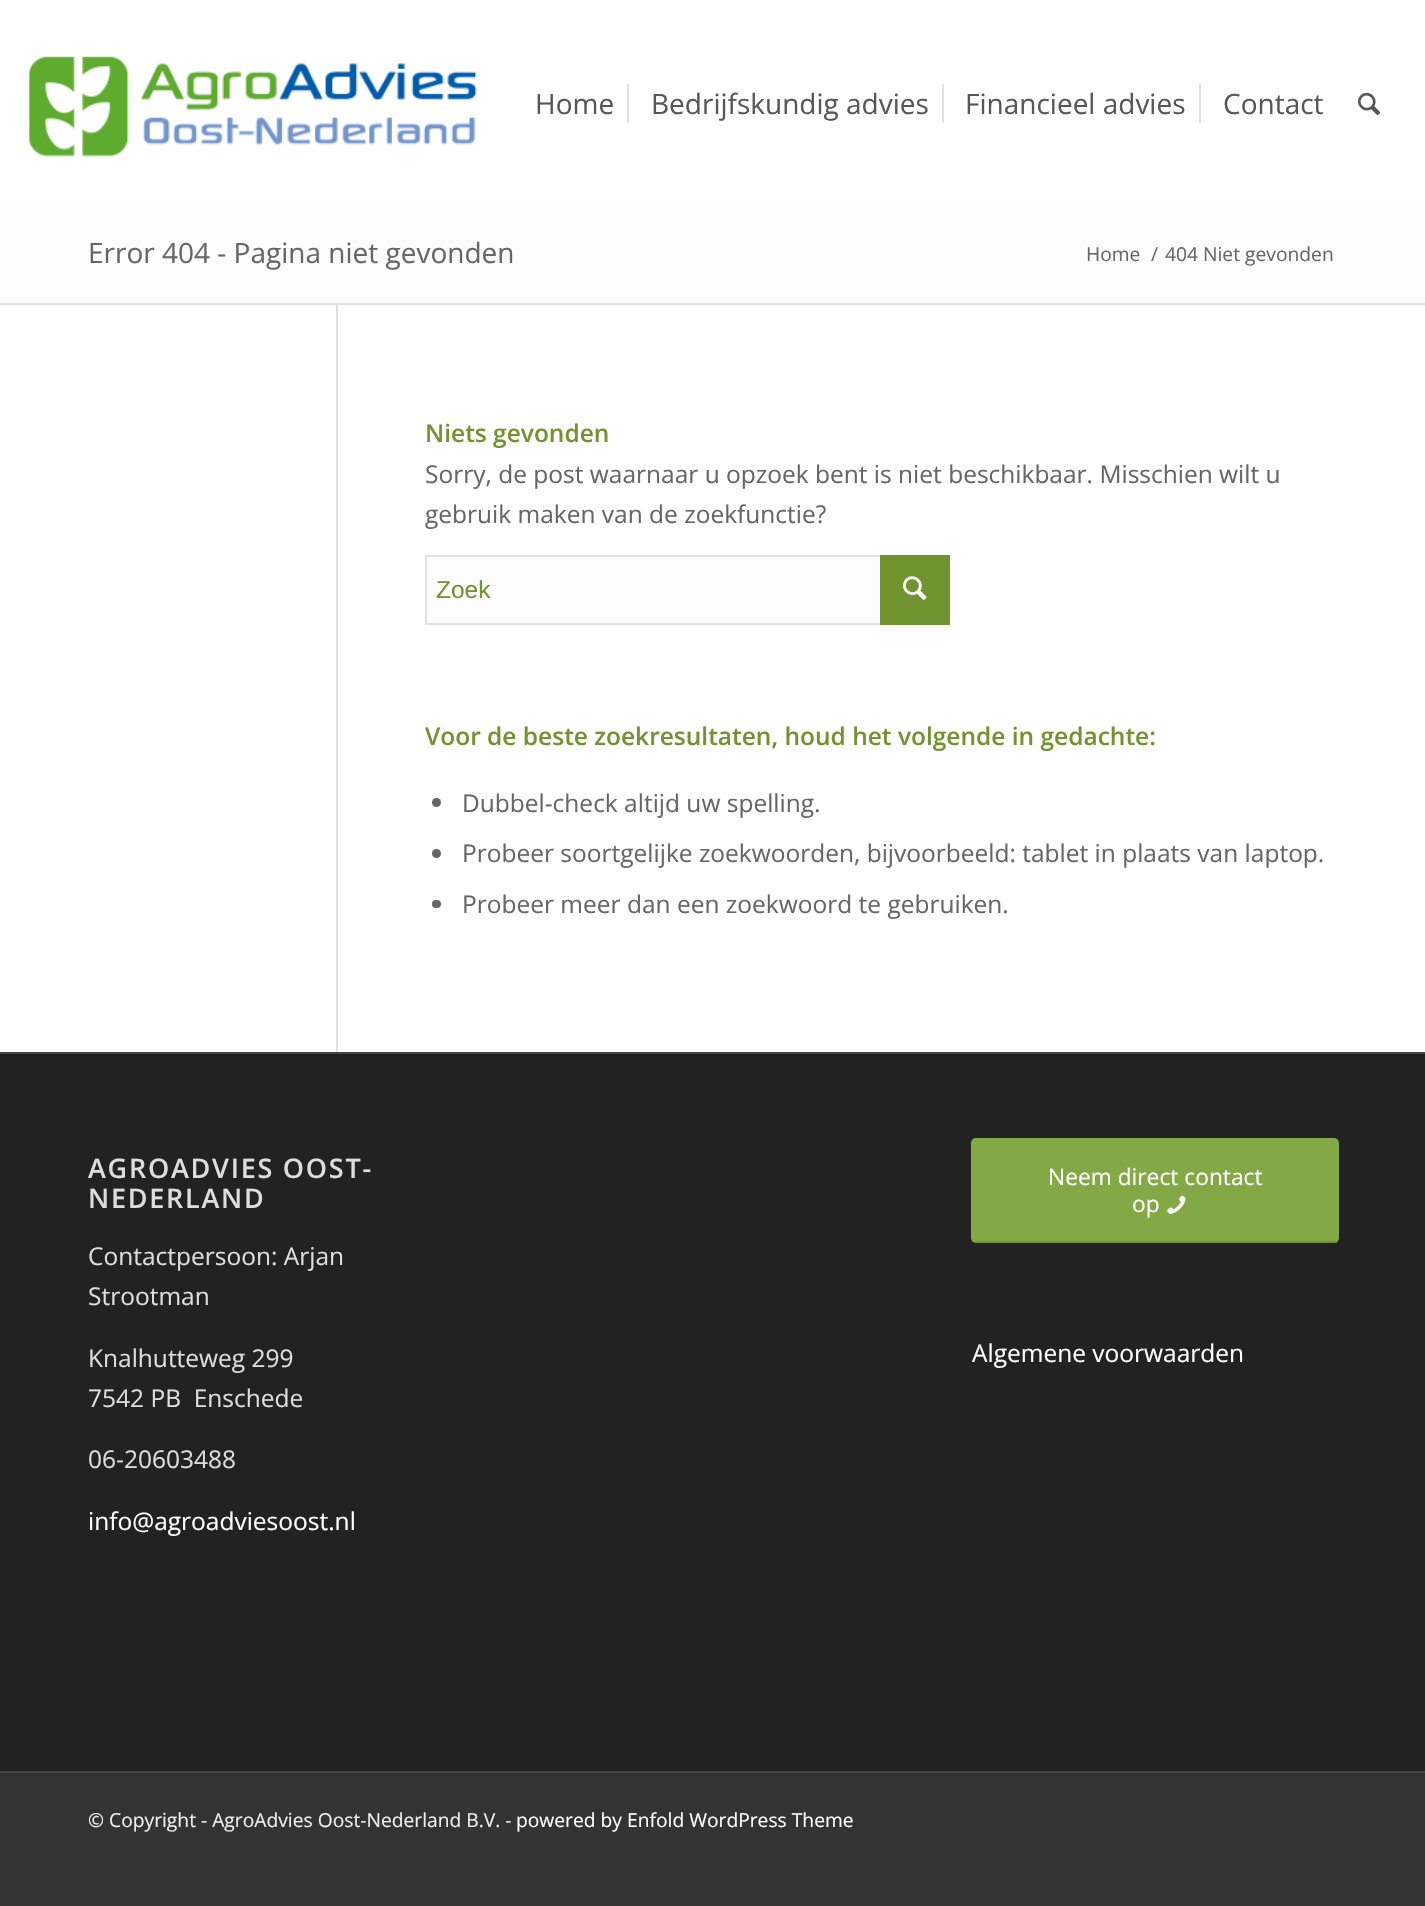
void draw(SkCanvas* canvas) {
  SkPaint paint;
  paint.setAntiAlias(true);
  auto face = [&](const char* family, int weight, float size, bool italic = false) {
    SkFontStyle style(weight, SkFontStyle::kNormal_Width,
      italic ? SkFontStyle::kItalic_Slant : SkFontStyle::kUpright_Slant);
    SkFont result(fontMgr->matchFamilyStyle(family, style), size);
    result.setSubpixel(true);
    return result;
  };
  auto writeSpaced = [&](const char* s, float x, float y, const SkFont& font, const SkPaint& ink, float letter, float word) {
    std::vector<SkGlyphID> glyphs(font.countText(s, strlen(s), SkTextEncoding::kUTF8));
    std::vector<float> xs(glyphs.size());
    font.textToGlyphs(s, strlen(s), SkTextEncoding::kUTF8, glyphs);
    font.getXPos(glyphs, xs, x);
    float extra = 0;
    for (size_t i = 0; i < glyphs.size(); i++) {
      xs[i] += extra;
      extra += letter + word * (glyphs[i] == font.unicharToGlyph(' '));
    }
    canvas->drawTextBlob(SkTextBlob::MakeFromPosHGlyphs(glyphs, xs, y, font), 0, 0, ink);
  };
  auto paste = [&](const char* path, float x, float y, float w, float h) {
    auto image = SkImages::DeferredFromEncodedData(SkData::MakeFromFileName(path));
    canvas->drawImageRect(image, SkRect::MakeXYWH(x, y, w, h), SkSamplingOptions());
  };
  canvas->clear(0xff333333);
  paint.setColor(0xffffffff);
  canvas->drawRect(SkRect::MakeXYWH(0, 0, 1425, 207), paint);
  paste("img/1.png", 29, 56, 448, 102);
  {
    const struct { float x, y, w, h; SkColor color; } items[] = {
      {627, 84, 2, 39, 0xffe1e1e1},
      {942, 84, 2, 39, 0xffe1e1e1},
      {1199, 84, 2, 39, 0xffe1e1e1},
    };
    for (auto [x, y, w, h, color] : items) {
      paint.setColor(color);
      canvas->drawRect(SkRect::MakeXYWH(x, y, w, h), paint);
    }
  }
  paste("img/2.png", 1358, 92, 23, 23);
  {
    const struct { float x, y, w, h; SkColor color; } items[] = {
      {0, 305, 1425, 747, 0xffffffff},
      {0, 207, 1425, 96, 0xfffcfcfc},
      {0, 303, 1425, 2, 0xffe1e1e1},
      {336, 305, 2, 747, 0xffe1e1e1},
      {427, 557, 453, 66, 0xfffcfcfc},
    };
    for (auto [x, y, w, h, color] : items) {
      paint.setColor(color);
      canvas->drawRect(SkRect::MakeXYWH(x, y, w, h), paint);
    }
  }
  paint.setStroke(true);
  paint.setStrokeWidth(2);
  paint.setColor(0xffe1e1e1);
  canvas->drawRect(SkRect::MakeXYWH(426, 556, 523, 68), paint);
  paint.setStroke(false);
  paint.setColor(0xff719430);
  canvas->drawRect(SkRect::MakeXYWH(880, 555, 70, 70), paint);
  paste("img/3.png", 903, 576, 24, 24);
  paint.setColor(0xff666666);
  canvas->drawCircle(436.5f, 802.5f, 4.5f, paint);
  canvas->drawCircle(436.5f, 853.5f, 4.5f, paint);
  canvas->drawRoundRect(SkRect::MakeXYWH(432, 900, 9, 8), 4, 4, paint);
  paint.setColor(0xff222222);
  canvas->drawRect(SkRect::MakeXYWH(0, 1054, 1425, 717), paint);
  paint.setColor(0xff444444);
  canvas->drawRect(SkRect::MakeXYWH(0, 1052, 1425, 2), paint);
  paint.setColor(0xff83a846);
  canvas->drawRoundRect(SkRect::MakeXYWH(971, 1138, 368, 105), 5, 5, paint);
  paint.setColor(0xff6f8f3b);
  canvas->drawRect(SkRect::MakeXYWH(975, 1241, 362, 2), paint);
  paste("img/4.png", 1167, 1195, 19, 19);
  paint.setColor(0xff444444);
  canvas->drawRect(SkRect::MakeXYWH(0, 1771, 1425, 2), paint);
  auto f0 = face("Open Sans", 400, 28);
  paint.setColor(0xff575757);
  {
    const struct { const char* s; float x, y; } items[] = {
      {"Home", 535, 114},
      {"Bedrijfskundig advies", 651, 114},
      {"Financieel advies", 965, 114},
      {"Contact", 1223, 114},
    };
    for (auto [s, x, y] : items) {
      canvas->drawString(s, x, y, f0, paint);
    }
  }
  paint.setColor(0xff666666);
  canvas->drawString("Error 404 - Pagina niet gevonden", 88, 263, f0, paint);
  auto f1 = face("Open Sans", 400, 19.25f);
  {
    const struct { const char* s; float x, y; } items[] = {
      {"Home", 1086, 261},
      {"/", 1151, 261},
      {"404 Niet gevonden", 1165, 261},
    };
    for (auto [s, x, y] : items) {
      canvas->drawString(s, x, y, f1, paint);
    }
  }
  auto f2 = face("Open Sans", 600, 24.5f);
  paint.setColor(0xff719430);
  canvas->drawString("Niets gevonden", 425, 442, f2, paint);
  auto f3 = face("Open Sans", 400, 24.5f);
  paint.setColor(0xff666666);
  canvas->drawString("Sorry, de post waarnaar u opzoek bent is niet beschikbaar. Misschien wilt u", 425, 483, f3, paint);
  canvas->drawString("gebruik maken van de zoekfunctie?", 425, 523, f3, paint);
  auto f4 = face("Liberation Sans", 400, 24.5f);
  paint.setColor(0xff719430);
  canvas->drawString("Zoek", 436, 598, f4, paint);
  canvas->drawString("Voor de beste zoekresultaten, houd het volgende in gedachte:", 425, 745, f2, paint);
  paint.setColor(0xff666666);
  {
    const struct { const char* s; float x, y; } items[] = {
      {"Dubbel-check altijd uw spelling.", 462, 812},
      {"Probeer soortgelijke zoekwoorden, bijvoorbeeld: tablet in plaats van laptop.", 462, 862},
      {"Probeer meer dan een zoekwoord te gebruiken.", 462, 913},
    };
    for (auto [s, x, y] : items) {
      canvas->drawString(s, x, y, f3, paint);
    }
  }
  auto f5 = face("Open Sans", 600, 27);
  paint.setColor(0xffdddddd);
  writeSpaced("AGROADVIES OOST-", 88, 1178, f5, paint, 1.75f, 0);
  writeSpaced("NEDERLAND", 88, 1208, f5, paint, 1.75f, 0);
  {
    const struct { const char* s; float x, y; } items[] = {
      {"Contactpersoon: Arjan", 88, 1265},
      {"Strootman", 88, 1305},
      {"Knalhutteweg 299", 88, 1367},
      {"7542 PB  Enschede", 88, 1407},
      {"06-20603488", 88, 1468},
    };
    for (auto [s, x, y] : items) {
      canvas->drawString(s, x, y, f3, paint);
    }
  }
  paint.setColor(0xffffffff);
  canvas->drawString("info@agroadviesoost.nl", 88, 1530, f3, paint);
  auto f6 = face("Open Sans", 400, 22.75f);
  canvas->drawString("Neem direct contact", 1048, 1185, f6, paint);
  canvas->drawString("op", 1132, 1212, f6, paint);
  canvas->drawString("Algemene voorwaarden", 972, 1362, f3, paint);
  paint.setColor(0xffeeeeee);
  canvas->drawString("© Copyright - AgroAdvies Oost-Nederland B.V. -", 88, 1827, f1, paint);
  paint.setColor(0xffffffff);
  canvas->drawString("powered by Enfold WordPress Theme", 516, 1827, f1, paint);
}
